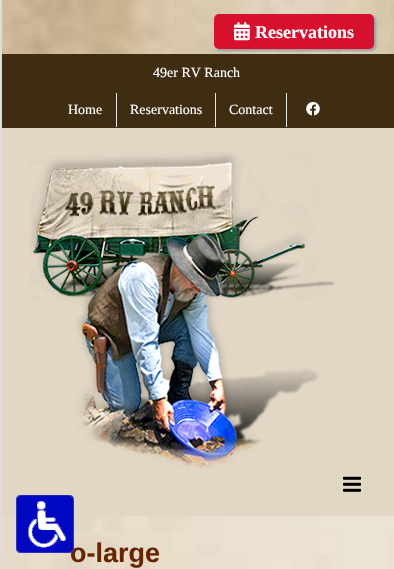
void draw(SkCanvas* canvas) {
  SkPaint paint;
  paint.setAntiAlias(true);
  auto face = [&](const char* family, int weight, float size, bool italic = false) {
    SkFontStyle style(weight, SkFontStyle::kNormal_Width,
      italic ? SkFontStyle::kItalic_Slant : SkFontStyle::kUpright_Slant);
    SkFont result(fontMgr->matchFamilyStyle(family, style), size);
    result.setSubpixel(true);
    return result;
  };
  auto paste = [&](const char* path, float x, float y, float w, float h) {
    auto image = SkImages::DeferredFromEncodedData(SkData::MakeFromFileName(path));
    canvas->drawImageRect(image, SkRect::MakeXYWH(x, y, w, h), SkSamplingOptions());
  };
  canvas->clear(0xffffffff);
  paste("img/1.png", 0, 0, 394, 569);
  paint.setColor(0xffdddddd);
  canvas->drawRoundRect(SkRect::MakeXYWH(0, -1, 2, 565), 1, 1, paint);
  paint.setColor(0xff3f2d11);
  canvas->drawRect(SkRect::MakeXYWH(2, 54, 392, 74), paint);
  paint.setColor(0xff999999);
  paint.setMaskFilter(SkMaskFilter::MakeBlur(kNormal_SkBlurStyle, 1.5f));
  canvas->drawRoundRect(SkRect::MakeXYWH(216, 16, 160, 35), 5, 5, paint);
  paint.setMaskFilter(nullptr);
  paint.setColor(0xffd7112d);
  canvas->drawRoundRect(SkRect::MakeXYWH(214, 14, 160, 35), 5, 5, paint);
  paste("img/3.png", 234, 22, 16, 19);
  {
    const struct { float x, y, w, h; SkColor color; } items[] = {
      {116, 93, 1, 34, 0xffe5e5e5},
      {215, 93, 1, 34, 0xffe5e5e5},
      {286, 93, 1, 34, 0xffe5e5e5},
    };
    for (auto [x, y, w, h, color] : items) {
      paint.setColor(color);
      canvas->drawRect(SkRect::MakeXYWH(x, y, w, h), paint);
    }
  }
  paste("img/4.png", 306, 102, 14, 14);
  paint.setColor(0xffe2d7c5);
  canvas->drawRect(SkRect::MakeXYWH(2, 128, 392, 388), paint);
  paste("img/5.png", 30, 152, 305, 317);
  paste("img/6.png", 343, 476, 18, 16);
  auto f0 = face("Liberation Serif", 700, 18);
  paint.setColor(0xffffffff);
  canvas->drawString("Reservations", 255, 38, f0, paint);
  auto f1 = face("Liberation Serif", 400, 14);
  {
    const struct { const char* s; float x, y; } items[] = {
      {"49er RV Ranch", 153, 77},
      {"Home", 68, 114},
      {"Reservations", 130, 114},
      {"Contact", 229, 114},
    };
    for (auto [s, x, y] : items) {
      canvas->drawString(s, x, y, f1, paint);
    }
  }
  auto f2 = face("Liberation Sans", 700, 27);
  paint.setColor(0xff682400);
  canvas->drawString("o-large", 70, 562, f2, paint);
  paste("img/2.png", 16, 495, 58, 58);
}
